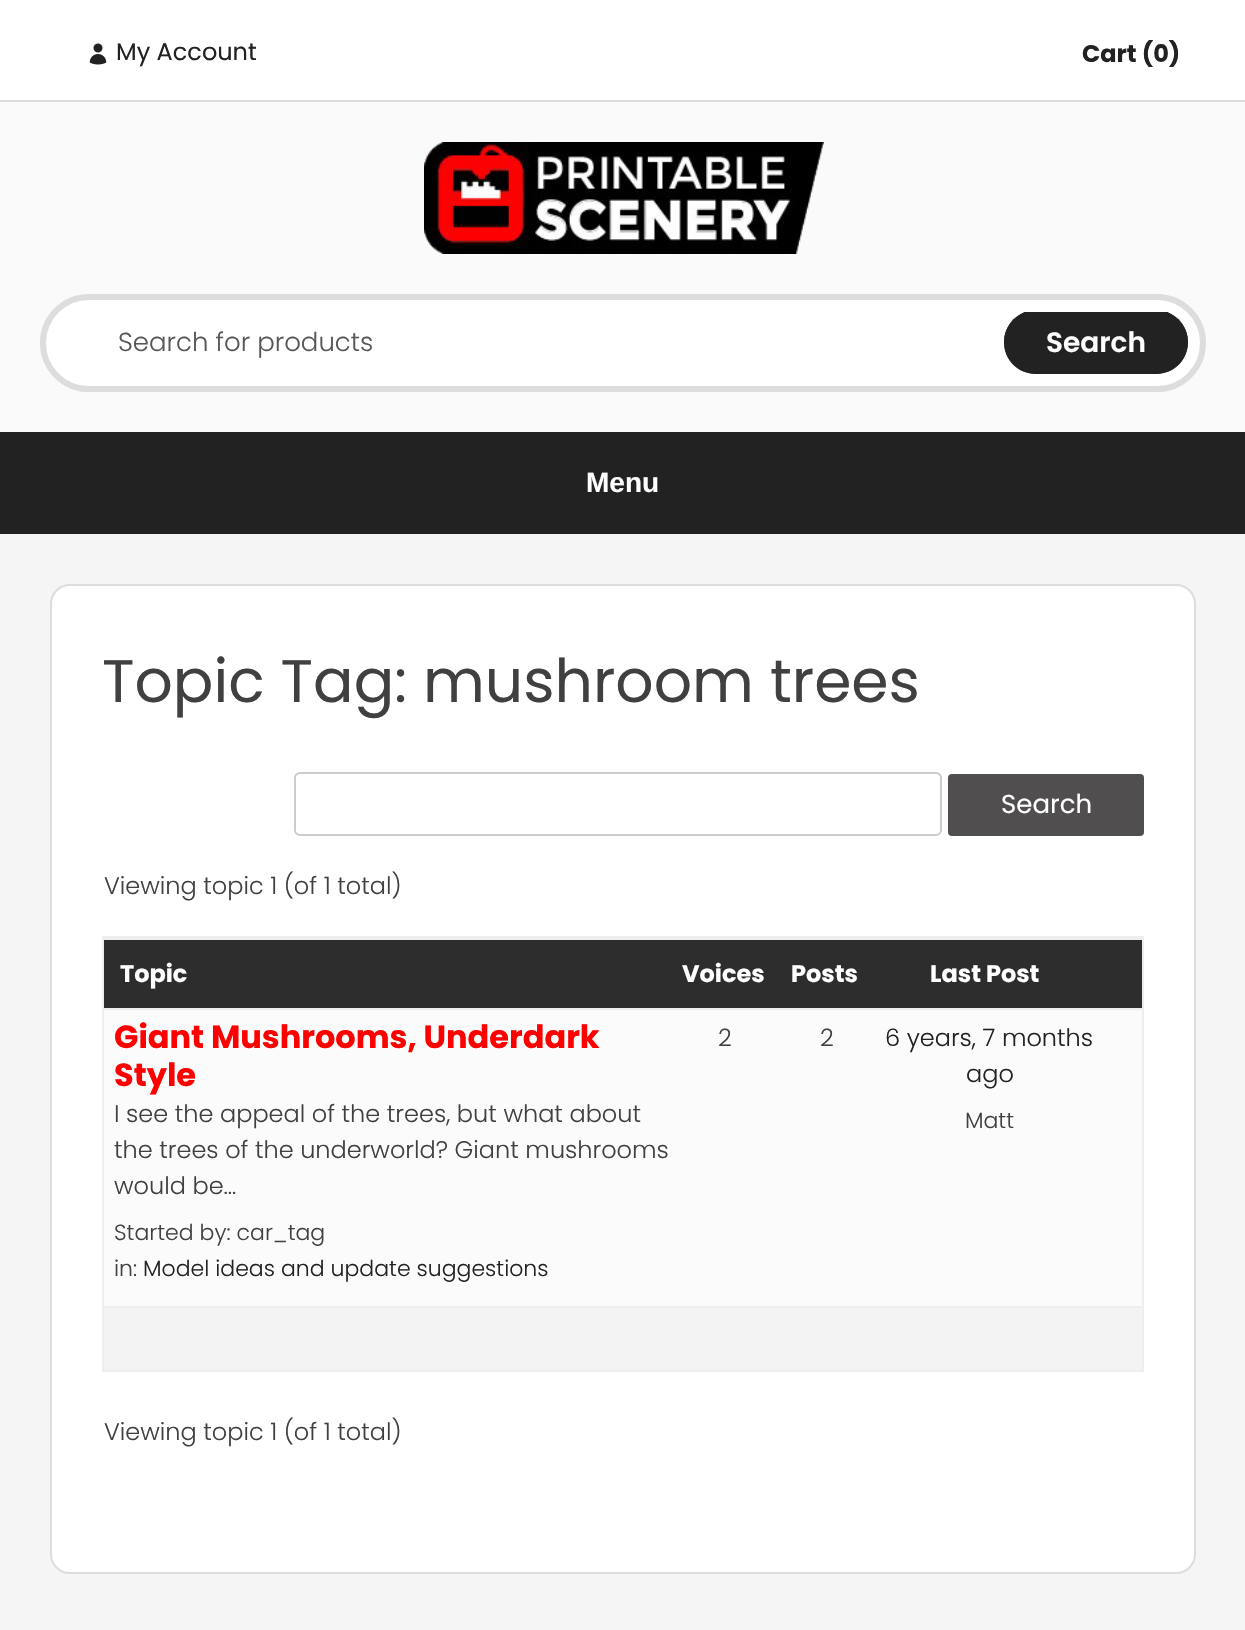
void draw(SkCanvas* canvas) {
  SkPaint paint;
  paint.setAntiAlias(true);
  auto face = [&](const char* family, int weight, float size, bool italic = false) {
    SkFontStyle style(weight, SkFontStyle::kNormal_Width,
      italic ? SkFontStyle::kItalic_Slant : SkFontStyle::kUpright_Slant);
    SkFont result(fontMgr->matchFamilyStyle(family, style), size);
    result.setSubpixel(true);
    return result;
  };
  auto paste = [&](const char* path, float x, float y, float w, float h) {
    auto image = SkImages::DeferredFromEncodedData(SkData::MakeFromFileName(path));
    canvas->drawImageRect(image, SkRect::MakeXYWH(x, y, w, h), SkSamplingOptions());
  };
  auto shape = [&](const char* data, bool evenOdd = false) {
    SkPath result = *SkParsePath::FromSVGString(data);
    if (evenOdd) result.setFillType(SkPathFillType::kEvenOdd);
    return result;
  };
  canvas->clear(0xfff5f5f5);
  paint.setColor(0xffffffff);
  canvas->drawRect(SkRect::MakeXYWH(0, 0, 1245, 100), paint);
  paint.setColor(0xffdddddd);
  canvas->drawRect(SkRect::MakeXYWH(0, 100, 1245, 2), paint);
  paste("img/1.png", 89, 43, 18, 22);
  paint.setColor(0xfffafafa);
  canvas->drawRect(SkRect::MakeXYWH(0, 102, 1245, 330), paint);
  paste("img/2.png", 424, 142, 400, 112);
  paint.setColor(0xffffffff);
  canvas->drawRoundRect(SkRect::MakeXYWH(43, 297, 1160, 92), 46, 46, paint);
  paint.setStroke(true);
  paint.setStrokeWidth(6);
  paint.setColor(0xffdddddd);
  canvas->drawRoundRect(SkRect::MakeXYWH(43, 297, 1160, 92), 46, 46, paint);
  canvas->save();
  canvas->clipPath(shape("M68 312H1178C1183.5 312 1188 316.5 1188 322V364C1188 369.5 1183.5 374 1178 374H68C62.5 374 58 369.5 58 364V322C58 316.5 62.5 312 68 312Z"), true);
  paint.setStroke(false);
  paint.setColor(0xff222222);
  canvas->drawRoundRect(SkRect::MakeXYWH(1004, 310, 184, 64), 32, 32, paint);
  canvas->restore();
  canvas->drawPath(shape("M1036 312H1025C1013 317 1004 328 1004 342C1004 360 1018 374 1036 374H1156C1174 374 1188 360 1188 342C1188 328 1179 317 1167 312H1156C1173 312 1186 325 1186 342C1186 359 1173 372 1156 372H1036C1019 372 1006 359 1006 342C1006 325 1019 312 1036 312Z"), paint);
  canvas->drawRect(SkRect::MakeXYWH(0, 432, 1245, 102), paint);
  paint.setColor(0xffffffff);
  canvas->drawRoundRect(SkRect::MakeXYWH(51, 585, 1144, 988), 19, 19, paint);
  paint.setStroke(true);
  paint.setStrokeWidth(2);
  paint.setColor(0xffdddddd);
  canvas->drawRoundRect(SkRect::MakeXYWH(51, 585, 1144, 988), 19, 19, paint);
  paint.setColor(0xffcccccc);
  canvas->drawRoundRect(SkRect::MakeXYWH(295, 773, 646, 62), 5, 5, paint);
  paint.setStroke(false);
  paint.setColor(0xff504e4e);
  canvas->drawRoundRect(SkRect::MakeXYWH(948, 774, 196, 62), 4, 4, paint);
  paint.setStroke(true);
  paint.setColor(0xffeeeeee);
  canvas->drawRect(SkRect::MakeXYWH(103, 937, 1040, 434), paint);
  paint.setStroke(false);
  {
    const struct { float x, y, w, h; SkColor color; } items[] = {
      {104, 940, 1038, 68, 0xff2d2d2d},
      {104, 938, 1038, 2, 0xffeeeeee},
      {104, 1010, 1038, 296, 0xfffbfbfb},
      {104, 1008, 1038, 2, 0xffeeeeee},
      {104, 1308, 1038, 62, 0xfff3f3f3},
      {104, 1306, 1038, 2, 0xffeeeeee},
    };
    for (auto [x, y, w, h, color] : items) {
      paint.setColor(color);
      canvas->drawRect(SkRect::MakeXYWH(x, y, w, h), paint);
    }
  }
  auto f0 = face("Poppins", 400, 24);
  paint.setColor(0xff222222);
  canvas->drawString("My Account", 116, 60, f0, paint);
  auto f1 = face("Poppins", 700, 24);
  canvas->drawString("Cart (0)", 1082, 62, f1, paint);
  auto f2 = face("Poppins", 300, 26);
  paint.setColor(0xff575757);
  canvas->drawString("Search for products", 118, 351, f2, paint);
  auto f3 = face("Poppins", 600, 28);
  paint.setColor(0xffffffff);
  canvas->drawString("Search", 1046, 352, f3, paint);
  auto f4 = face("Liberation Sans", 700, 28);
  canvas->drawString("Menu", 586, 492, f4, paint);
  auto f5 = face("Poppins", 400, 60);
  paint.setColor(0xff404040);
  canvas->drawString("Topic Tag: mushroom trees", 102, 702, f5, paint);
  auto f6 = face("Poppins", 400, 26);
  paint.setColor(0xffffffff);
  canvas->drawString("Search", 1001, 813, f6, paint);
  auto f7 = face("Poppins", 300, 24);
  paint.setColor(0xff404040);
  canvas->drawString("Viewing topic 1 (of 1 total)", 104, 894, f7, paint);
  paint.setColor(0xffffffff);
  {
    const struct { const char* s; float x, y; } items[] = {
      {"Topic", 120, 982},
      {"Voices", 682, 982},
      {"Posts", 791, 982},
      {"Last Post", 930, 982},
    };
    for (auto [s, x, y] : items) {
      canvas->drawString(s, x, y, f1, paint);
    }
  }
  auto f8 = face("Poppins", 700, 32);
  paint.setColor(0xfffd0000);
  canvas->drawString("Giant Mushrooms, Underdark", 114, 1048, f8, paint);
  canvas->drawString("Style", 114, 1086, f8, paint);
  paint.setColor(0xff404040);
  {
    const struct { const char* s; float x, y; } items[] = {
      {"I see the appeal of the trees, but what about", 114, 1122},
      {"the trees of the underworld? Giant mushrooms", 114, 1158},
      {"would be…", 114, 1194},
    };
    for (auto [s, x, y] : items) {
      canvas->drawString(s, x, y, f7, paint);
    }
  }
  auto f9 = face("Poppins", 300, 22);
  canvas->drawString("Started by: car_tag", 114, 1240, f9, paint);
  canvas->drawString("in:", 114, 1276, f9, paint);
  paint.setColor(0xff222222);
  canvas->drawString("Model ideas and update suggestions", 143, 1276, f9, paint);
  paint.setColor(0xff404040);
  canvas->drawString("2", 718, 1046, f7, paint);
  canvas->drawString("2", 820, 1046, f7, paint);
  paint.setColor(0xff222222);
  canvas->drawString("6 years, 7 months", 885, 1046, f7, paint);
  canvas->drawString("ago", 966, 1082, f7, paint);
  paint.setColor(0xff404040);
  canvas->drawString("Matt", 965, 1128, f9, paint);
  canvas->drawString("Viewing topic 1 (of 1 total)", 104, 1440, f7, paint);
}
